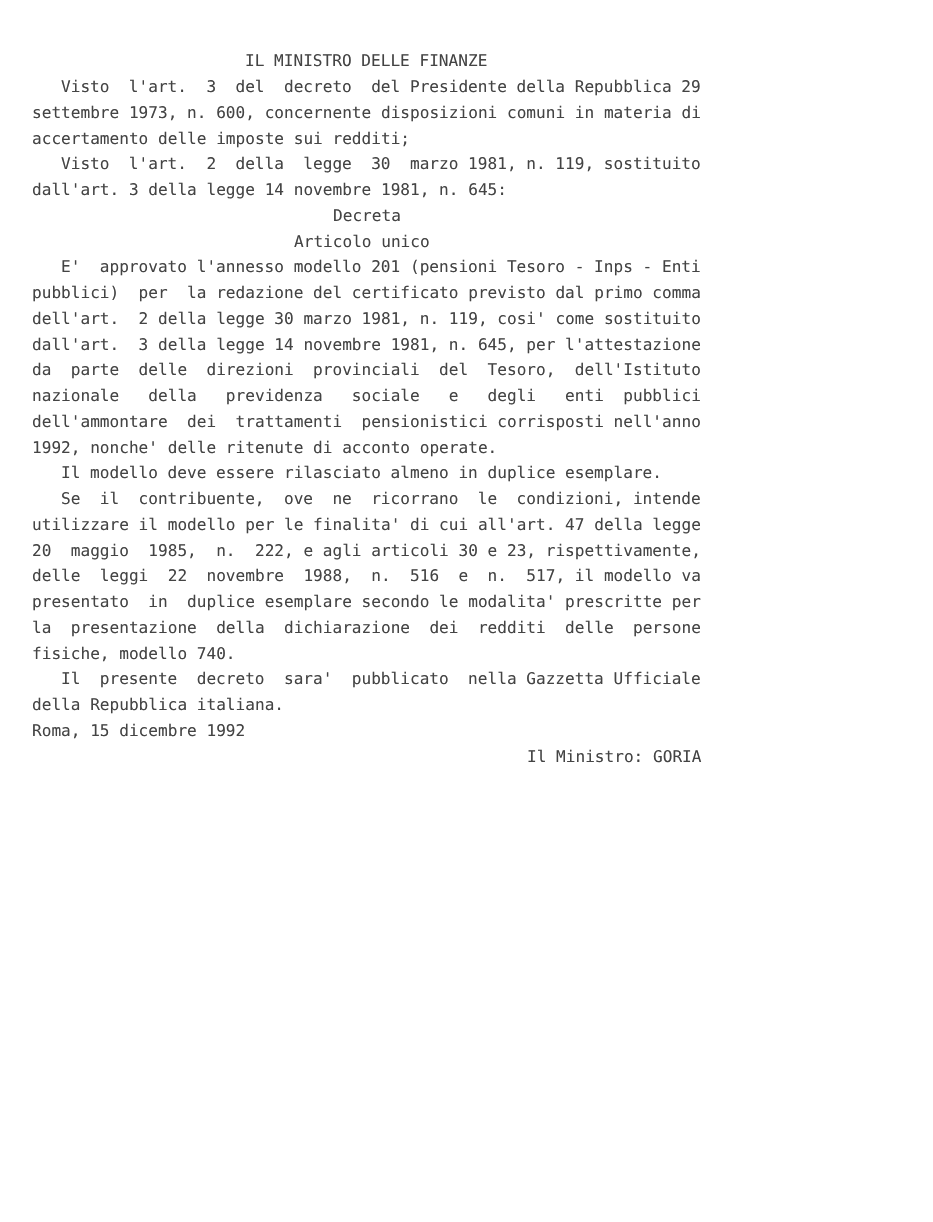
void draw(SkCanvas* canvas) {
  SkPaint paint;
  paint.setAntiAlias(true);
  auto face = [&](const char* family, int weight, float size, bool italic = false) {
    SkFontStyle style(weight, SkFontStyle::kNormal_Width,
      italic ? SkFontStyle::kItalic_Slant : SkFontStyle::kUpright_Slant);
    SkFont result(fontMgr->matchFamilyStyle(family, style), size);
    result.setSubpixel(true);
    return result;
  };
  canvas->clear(0xffffffff);
  auto f0 = face("DejaVu Sans Mono", 400, 16.1f);
  paint.setColor(0xff444444);
  {
    const struct { const char* s; float x, y; } items[] = {
      {"IL MINISTRO DELLE FINANZE", 245, 66},
      {"Visto  l'art.  3  del  decreto  del Presidente della Repubblica 29", 61, 92},
      {"settembre 1973, n. 600, concernente disposizioni comuni in materia di", 32, 118},
      {"accertamento delle imposte sui redditi;", 32, 144},
      {"Visto  l'art.  2  della  legge  30  marzo 1981, n. 119, sostituito", 61, 169},
      {"dall'art. 3 della legge 14 novembre 1981, n. 645:", 32, 195},
      {"Decreta", 333, 221},
      {"Articolo unico", 294, 247},
      {"E'  approvato l'annesso modello 201 (pensioni Tesoro - Inps - Enti", 61, 272},
      {"pubblici)  per  la redazione del certificato previsto dal primo comma", 32, 298},
      {"dell'art.  2 della legge 30 marzo 1981, n. 119, cosi' come sostituito", 32, 324},
      {"dall'art.  3 della legge 14 novembre 1981, n. 645, per l'attestazione", 32, 350},
      {"da  parte  delle  direzioni  provinciali  del  Tesoro,  dell'Istituto", 32, 375},
      {"nazionale   della   previdenza   sociale   e   degli   enti  pubblici", 32, 401},
      {"dell'ammontare  dei  trattamenti  pensionistici corrisposti nell'anno", 32, 427},
      {"1992, nonche' delle ritenute di acconto operate.", 32, 453},
      {"Il modello deve essere rilasciato almeno in duplice esemplare.", 61, 478},
      {"Se  il  contribuente,  ove  ne  ricorrano  le  condizioni, intende", 61, 504},
      {"utilizzare il modello per le finalita' di cui all'art. 47 della legge", 32, 530},
      {"20  maggio  1985,  n.  222, e agli articoli 30 e 23, rispettivamente,", 32, 556},
      {"delle  leggi  22  novembre  1988,  n.  516  e  n.  517, il modello va", 32, 581},
      {"presentato  in  duplice esemplare secondo le modalita' prescritte per", 32, 607},
      {"la  presentazione  della  dichiarazione  dei  redditi  delle  persone", 32, 633},
      {"fisiche, modello 740.", 32, 659},
      {"Il  presente  decreto  sara'  pubblicato  nella Gazzetta Ufficiale", 61, 684},
      {"della Repubblica italiana.", 32, 710},
      {"Roma, 15 dicembre 1992", 32, 736},
      {"Il Ministro: GORIA", 527, 762},
    };
    for (auto [s, x, y] : items) {
      canvas->drawString(s, x, y, f0, paint);
    }
  }
}
